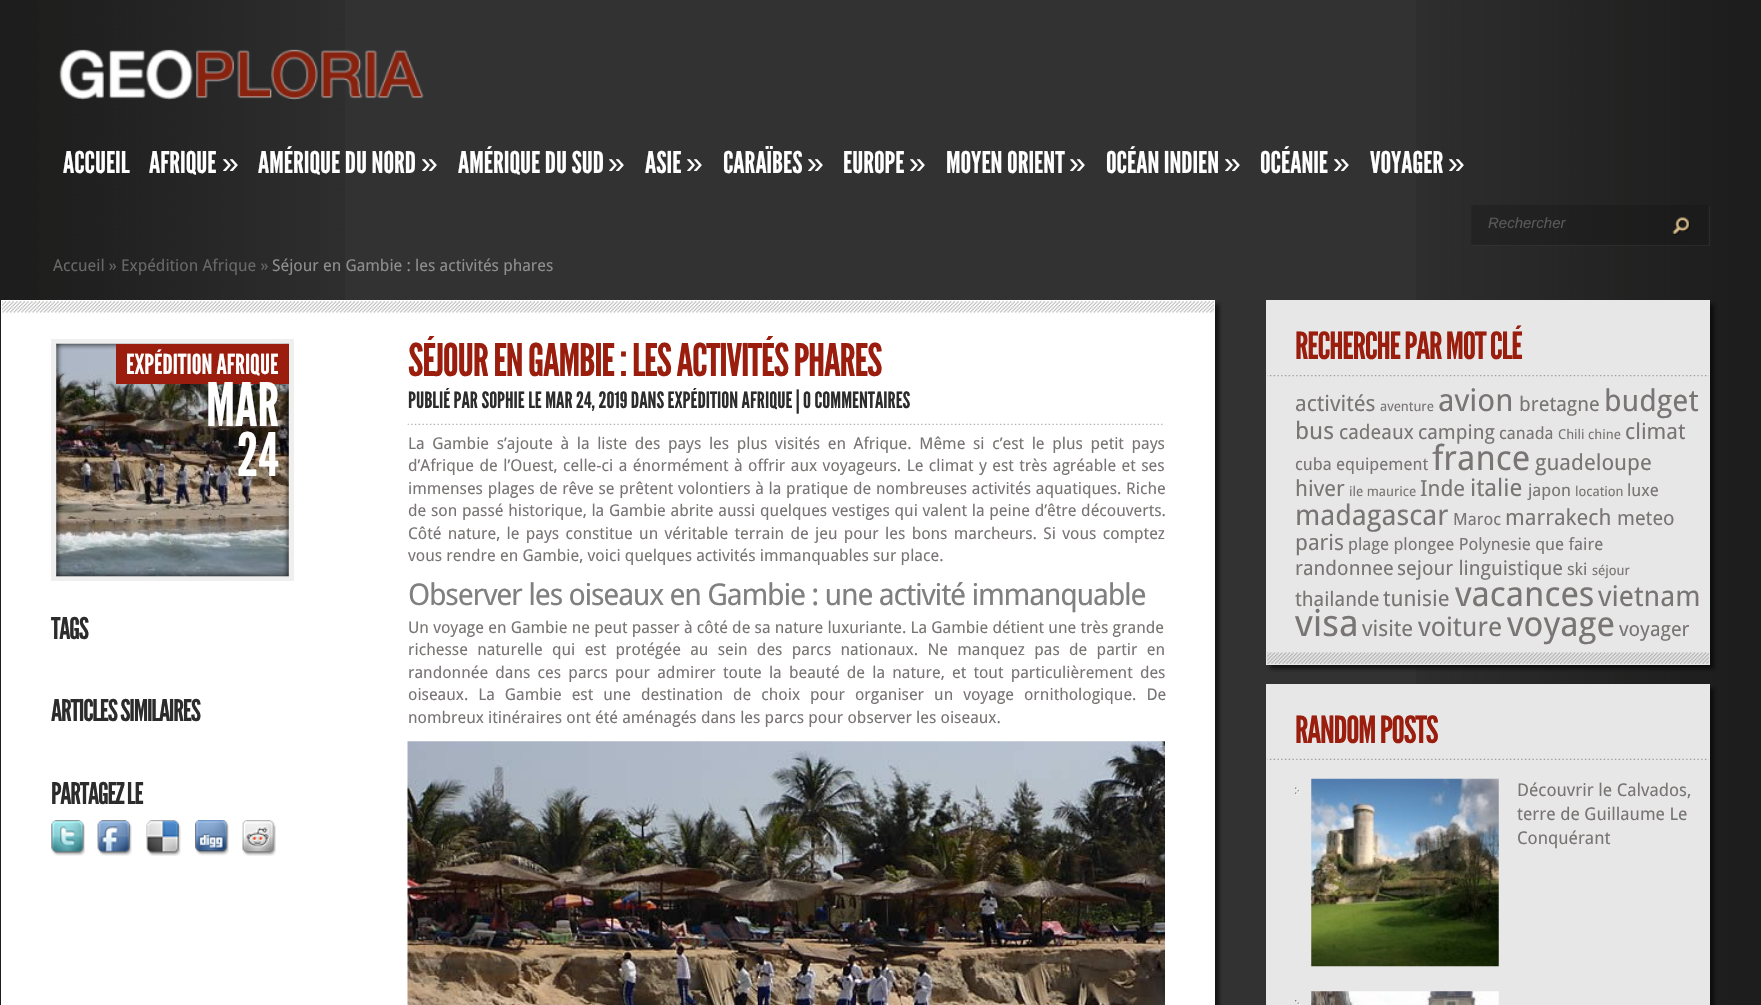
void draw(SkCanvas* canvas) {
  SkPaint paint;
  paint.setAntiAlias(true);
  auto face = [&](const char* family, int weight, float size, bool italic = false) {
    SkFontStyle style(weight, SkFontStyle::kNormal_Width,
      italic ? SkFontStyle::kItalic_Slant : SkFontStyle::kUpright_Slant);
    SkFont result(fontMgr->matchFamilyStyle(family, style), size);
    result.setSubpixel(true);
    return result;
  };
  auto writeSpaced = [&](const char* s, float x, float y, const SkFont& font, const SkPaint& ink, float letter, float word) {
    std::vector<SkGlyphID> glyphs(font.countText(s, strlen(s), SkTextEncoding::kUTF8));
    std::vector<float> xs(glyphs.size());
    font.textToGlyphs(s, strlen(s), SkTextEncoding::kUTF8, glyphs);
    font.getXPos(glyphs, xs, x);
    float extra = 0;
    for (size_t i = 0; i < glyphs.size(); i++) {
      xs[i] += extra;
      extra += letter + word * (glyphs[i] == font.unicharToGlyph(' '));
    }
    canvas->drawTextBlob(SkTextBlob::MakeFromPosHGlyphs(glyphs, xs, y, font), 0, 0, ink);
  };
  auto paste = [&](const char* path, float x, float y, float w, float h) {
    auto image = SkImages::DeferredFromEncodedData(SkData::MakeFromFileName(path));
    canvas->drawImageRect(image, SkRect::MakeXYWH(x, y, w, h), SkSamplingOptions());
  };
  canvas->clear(0xff323232);
  paste("img/1.png", 0, 0, 345, 1005);
  paste("img/2.png", 1416, 0, 345, 1005);
  paste("img/3.png", 59, 49, 365, 51);
  paste("img/4.png", 1471, 205, 239, 41);
  paste("img/5.png", 1672, 217, 18, 18);
  paint.setColor(0x99000000);
  paint.setMaskFilter(SkMaskFilter::MakeBlur(kNormal_SkBlurStyle, 2));
  canvas->drawRect(SkRect::MakeXYWH(5, 304, 1214, 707), paint);
  paint.setMaskFilter(nullptr);
  paint.setColor(0xffffffff);
  canvas->drawRect(SkRect::MakeXYWH(2, 301, 1212, 704), paint);
  paste("img/6.png", 2, 301, 1212, 12);
  paint.setStroke(true);
  paint.setStrokeWidth(1);
  canvas->drawRect(SkRect::MakeXYWH(1.5f, 300.5f, 1213, 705), paint);
  paint.setStrokeWidth(5);
  paint.setColor(0xffefefef);
  canvas->drawRect(SkRect::MakeXYWH(53.5f, 341.5f, 238, 237), paint);
  paste("img/7.png", 56, 343, 233, 234);
  paste("img/8.png", 56, 343, 233, 234);
  paint.setStroke(false);
  paint.setColor(0xff9a1d0d);
  canvas->drawRect(SkRect::MakeXYWH(116, 344, 173, 40), paint);
  paste("img/9.png", 51, 820, 34, 36);
  paste("img/10.png", 97, 820, 35, 36);
  paste("img/11.png", 146, 820, 35, 36);
  paste("img/12.png", 195, 820, 34, 36);
  paste("img/13.png", 242, 820, 34, 36);
  paste("img/14.png", 407, 423, 758, 2);
  paste("img/15.png", 407, 741, 758, 264);
  paint.setColor(0x99000000);
  paint.setMaskFilter(SkMaskFilter::MakeBlur(kNormal_SkBlurStyle, 2));
  canvas->drawRect(SkRect::MakeXYWH(1270, 304, 444, 365), paint);
  paint.setMaskFilter(nullptr);
  paint.setColor(0xffe7e7e7);
  canvas->drawRect(SkRect::MakeXYWH(1267, 301, 442, 363), paint);
  paste("img/16.png", 1267, 652, 442, 12);
  paint.setStroke(true);
  paint.setStrokeWidth(1);
  canvas->drawRect(SkRect::MakeXYWH(1266.5f, 300.5f, 443, 364), paint);
  paste("img/17.png", 1267, 375, 442, 2);
  paint.setStroke(false);
  paint.setColor(0x99000000);
  paint.setMaskFilter(SkMaskFilter::MakeBlur(kNormal_SkBlurStyle, 2));
  canvas->drawRect(SkRect::MakeXYWH(1270, 688, 444, 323), paint);
  paint.setMaskFilter(nullptr);
  paint.setColor(0xffe7e7e7);
  canvas->drawRect(SkRect::MakeXYWH(1266, 684, 444, 321), paint);
  paste("img/18.png", 1267, 758, 442, 2);
  paste("img/19.png", 1295, 787, 5, 8);
  paste("img/20.png", 1311, 778, 188, 189);
  paste("img/21.png", 1295, 1000, 5, 5);
  paste("img/22.png", 1311, 991, 188, 14);
  auto f0 = face("League Gothic", 400, 30);
  paint.setColor(0xffffffff);
  canvas->drawString("ACCUEIL", 63, 173, f0, paint);
  canvas->drawString("AFRIQUE", 149, 173, f0, paint);
  auto f1 = face("Liberation Sans", 400, 30);
  canvas->drawString("»", 222, 173, f1, paint);
  canvas->drawString("AMÉRIQUE DU NORD", 258, 173, f0, paint);
  canvas->drawString("»", 421, 173, f1, paint);
  canvas->drawString("AMÉRIQUE DU SUD", 458, 173, f0, paint);
  canvas->drawString("»", 608, 173, f1, paint);
  canvas->drawString("ASIE", 645, 173, f0, paint);
  canvas->drawString("»", 686, 173, f1, paint);
  canvas->drawString("CARAÏBES", 723, 173, f0, paint);
  canvas->drawString("»", 807, 173, f1, paint);
  canvas->drawString("EUROPE", 843, 173, f0, paint);
  canvas->drawString("»", 909, 173, f1, paint);
  canvas->drawString("MOYEN ORIENT", 946, 173, f0, paint);
  canvas->drawString("»", 1069, 173, f1, paint);
  canvas->drawString("OCÉAN INDIEN", 1106, 173, f0, paint);
  canvas->drawString("»", 1224, 173, f1, paint);
  canvas->drawString("OCÉANIE", 1260, 173, f0, paint);
  canvas->drawString("»", 1333, 173, f1, paint);
  canvas->drawString("VOYAGER", 1370, 173, f0, paint);
  canvas->drawString("»", 1448, 173, f1, paint);
  auto f2 = face("Liberation Sans", 400, 15, true);
  paint.setColor(0xff595959);
  canvas->drawString("Rechercher", 1488, 228, f2, paint);
  auto f3 = face("Droid Sans", 400, 16.25f);
  paint.setColor(0xff686767);
  canvas->drawString("Accueil » Expédition Afrique »", 53, 271, f3, paint);
  paint.setColor(0xff8e8e8e);
  canvas->drawString("Séjour en Gambie : les activités phares", 272, 271, f3, paint);
  auto f4 = face("League Gothic", 400, 27.5f);
  paint.setColor(0xffffffff);
  canvas->drawString("EXPÉDITION AFRIQUE", 126, 374, f4, paint);
  auto f5 = face("League Gothic", 400, 60);
  canvas->drawString("MAR", 206, 426, f5, paint);
  canvas->drawString("24", 237, 476, f5, paint);
  paint.setColor(0xff2c2c2c);
  {
    const struct { const char* s; float x, y; } items[] = {
      {"TAGS", 51, 639},
      {"ARTICLES SIMILAIRES", 51, 721},
      {"PARTAGEZ LE", 51, 804},
    };
    for (auto [s, x, y] : items) {
      writeSpaced(s, x, y, f0, paint, -1.25f, 0);
    }
  }
  auto f6 = face("League Gothic", 400, 45);
  paint.setColor(0xff9a1d0d);
  writeSpaced("SÉJOUR EN GAMBIE : LES ACTIVITÉS PHARES", 408, 376, f6, paint, -1.25f, 0);
  auto f7 = face("League Gothic", 400, 22.5f);
  paint.setColor(0xff2c2c2c);
  canvas->drawString("PUBLIÉ PAR SOPHIE LE MAR 24, 2019 DANS EXPÉDITION AFRIQUE | 0 COMMENTAIRES", 408, 408, f7, paint);
  paint.setColor(0xff7a7575);
  writeSpaced("La Gambie s’ajoute à la liste des pays les plus visités en Afrique. Même si c’est le plus petit pays", 408, 449, f3, paint, 0, 3.4f);
  writeSpaced("d’Afrique de l’Ouest, celle-ci a énormément à offrir aux voyageurs. Le climat y est très agréable et ses", 408, 471, f3, paint, 0, 1.25f);
  writeSpaced("immenses plages de rêve se prêtent volontiers à la pratique de nombreuses activités aquatiques. Riche", 408, 494, f3, paint, 0, 0.5f);
  writeSpaced("de son passé historique, la Gambie abrite aussi quelques vestiges qui valent la peine d’être découverts.", 408, 516, f3, paint, 0, 0.5f);
  writeSpaced("Côté nature, le pays constitue un véritable terrain de jeu pour les bons marcheurs. Si vous comptez", 408, 539, f3, paint, 0, 2.1f);
  canvas->drawString("vous rendre en Gambie, voici quelques activités immanquables sur place.", 408, 561, f3, paint);
  auto f8 = face("Droid Sans", 400, 30);
  paint.setColor(0xff808080);
  writeSpaced("Observer les oiseaux en Gambie : une activité immanquable", 408, 605, f8, paint, -1.25f, 0);
  paint.setColor(0xff7a7575);
  canvas->drawString("Un voyage en Gambie ne peut passer à côté de sa nature luxuriante. La Gambie détient une très grande", 408, 633, f3, paint);
  writeSpaced("richesse naturelle qui est protégée au sein des parcs nationaux. Ne manquez pas de partir en", 408, 655, f3, paint, 0, 5.1f);
  writeSpaced("randonnée dans ces parcs pour admirer toute la beauté de la nature, et tout particulièrement des", 408, 678, f3, paint, 0, 3);
  writeSpaced("oiseaux. La Gambie est une destination de choix pour organiser un voyage ornithologique. De", 408, 700, f3, paint, 0, 5.75f);
  canvas->drawString("nombreux itinéraires ont été aménagés dans les parcs pour observer les oiseaux.", 408, 723, f3, paint);
  auto f9 = face("League Gothic", 400, 37.5f);
  paint.setColor(0xff9a1d0d);
  writeSpaced("RECHERCHE PAR MOT CLÉ", 1295, 359, f9, paint, -1.25f, 0);
  auto f10 = face("Droid Sans", 400, 22);
  paint.setColor(0xff7a7575);
  canvas->drawString("activités", 1295, 411, f10, paint);
  auto f11 = face("Droid Sans", 400, 13.5f);
  canvas->drawString("aventure", 1380, 411, f11, paint);
  auto f12 = face("Droid Sans", 400, 31);
  canvas->drawString("avion", 1438, 411, f12, paint);
  auto f13 = face("Droid Sans", 400, 20);
  canvas->drawString("bretagne", 1519, 411, f13, paint);
  canvas->drawString("budget", 1604, 411, f8, paint);
  auto f14 = face("Droid Sans", 400, 24);
  canvas->drawString("bus", 1295, 439, f14, paint);
  canvas->drawString("cadeaux", 1339, 439, f13, paint);
  canvas->drawString("camping", 1418, 439, f13, paint);
  auto f15 = face("Droid Sans", 400, 16.9f);
  canvas->drawString("canada", 1499, 439, f15, paint);
  canvas->drawString("Chili", 1558, 439, f11, paint);
  canvas->drawString("chine", 1588, 439, f11, paint);
  canvas->drawString("climat", 1625, 439, f10, paint);
  canvas->drawString("cuba equipement", 1295, 470, f15, paint);
  auto f16 = face("Droid Sans", 400, 34.5f);
  canvas->drawString("france", 1432, 470, f16, paint);
  canvas->drawString("guadeloupe", 1535, 470, f10, paint);
  canvas->drawString("hiver", 1295, 496, f10, paint);
  canvas->drawString("ile maurice", 1349, 496, f11, paint);
  canvas->drawString("Inde", 1420, 496, f10, paint);
  canvas->drawString("italie", 1470, 496, f14, paint);
  canvas->drawString("japon", 1528, 496, f15, paint);
  canvas->drawString("location", 1575, 496, f11, paint);
  canvas->drawString("luxe", 1627, 496, f15, paint);
  auto f17 = face("Droid Sans", 400, 28.25f);
  canvas->drawString("madagascar", 1295, 525, f17, paint);
  canvas->drawString("Maroc", 1453, 525, f15, paint);
  canvas->drawString("marrakech", 1505, 525, f10, paint);
  canvas->drawString("meteo", 1617, 525, f13, paint);
  canvas->drawString("paris", 1295, 550, f10, paint);
  canvas->drawString("plage plongee Polynesie que faire", 1348, 550, f15, paint);
  canvas->drawString("randonnee", 1295, 575, f13, paint);
  canvas->drawString("sejour linguistique", 1397, 575, f13, paint);
  canvas->drawString("ski", 1567, 575, f15, paint);
  canvas->drawString("séjour", 1592, 575, f11, paint);
  canvas->drawString("thailande", 1295, 606, f13, paint);
  canvas->drawString("tunisie", 1383, 606, f10, paint);
  canvas->drawString("vacances", 1455, 606, f16, paint);
  canvas->drawString("vietnam", 1598, 606, f17, paint);
  auto f18 = face("Droid Sans", 400, 37);
  canvas->drawString("visa", 1295, 636, f18, paint);
  canvas->drawString("visite", 1362, 636, f10, paint);
  auto f19 = face("Droid Sans", 400, 26.5f);
  canvas->drawString("voiture", 1418, 636, f19, paint);
  canvas->drawString("voyage", 1507, 636, f16, paint);
  canvas->drawString("voyager", 1619, 636, f13, paint);
  paint.setColor(0xff9a1d0d);
  writeSpaced("RANDOM POSTS", 1295, 743, f9, paint, -1.25f, 0);
  auto f20 = face("Droid Sans", 400, 17.5f);
  paint.setColor(0xff7a7575);
  {
    const struct { const char* s; float x, y; } items[] = {
      {"Découvrir le Calvados,", 1517, 796},
      {"terre de Guillaume Le", 1517, 820},
      {"Conquérant", 1517, 844},
    };
    for (auto [s, x, y] : items) {
      canvas->drawString(s, x, y, f20, paint);
    }
  }
}
